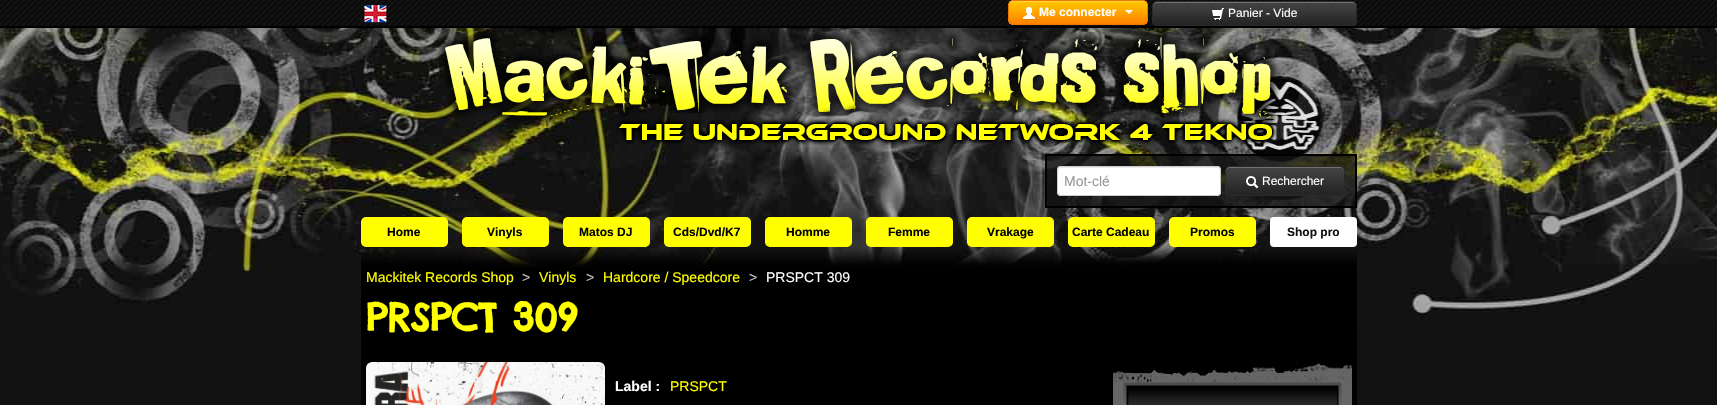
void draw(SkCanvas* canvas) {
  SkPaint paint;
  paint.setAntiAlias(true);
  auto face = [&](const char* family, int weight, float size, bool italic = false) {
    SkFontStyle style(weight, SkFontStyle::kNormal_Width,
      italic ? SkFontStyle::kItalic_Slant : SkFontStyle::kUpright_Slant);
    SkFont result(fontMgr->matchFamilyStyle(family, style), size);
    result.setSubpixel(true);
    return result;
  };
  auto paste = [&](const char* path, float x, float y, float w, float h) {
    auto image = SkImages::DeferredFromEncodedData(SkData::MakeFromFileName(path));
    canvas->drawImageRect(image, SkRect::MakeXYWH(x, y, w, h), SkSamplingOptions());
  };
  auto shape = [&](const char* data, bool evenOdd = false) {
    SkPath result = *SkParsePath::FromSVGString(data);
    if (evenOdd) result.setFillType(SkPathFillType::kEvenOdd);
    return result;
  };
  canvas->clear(0xff111111);
  paste("img/1.png", 0, 0, 1717, 26);
  paint.setColor(0xff000000);
  canvas->drawRect(SkRect::MakeXYWH(0, 26, 1717, 2), paint);
  paste("img/2.png", 364, 5, 23, 18);
  paste("img/3.png", 1008, 0, 140, 25);
  paste("img/4.png", 1023, 7, 12, 13);
  paint.setColor(0xffffffff);
  canvas->drawPath(shape("M1125 10H1133L1129 14Z"), paint);
  paste("img/5.png", 1152, 1, 205, 25);
  paste("img/6.png", 1212, 8, 12, 13);
  paste("img/7.png", 0, 28, 1717, 296);
  paste("img/8.png", 435, 29, 846, 120);
  paint.setColor(0xcc111111);
  canvas->drawRect(SkRect::MakeXYWH(1046, 155, 310, 52), paint);
  paint.setStroke(true);
  paint.setStrokeWidth(2);
  paint.setColor(0xff000000);
  canvas->drawRect(SkRect::MakeXYWH(1046, 155, 310, 52), paint);
  paint.setStroke(false);
  paint.setColor(0xffffffff);
  canvas->drawRoundRect(SkRect::MakeXYWH(1057, 166, 164, 30), 4, 4, paint);
  paint.setColor(0xffececec);
  canvas->drawPath(shape("M1061 168H1217C1219 168 1220 169 1220 171C1220 169 1219 167 1217 167H1060C1058 167 1058 169 1058 171C1058 169 1059 168 1061 168Z"), paint);
  paint.setStroke(true);
  paint.setStrokeWidth(1);
  paint.setColor(0xffcccccc);
  canvas->drawRoundRect(SkRect::MakeXYWH(1057.5f, 166.5f, 163, 29), 3.5f, 3.5f, paint);
  paste("img/9.png", 1225, 166, 120, 30);
  paste("img/10.png", 1246, 176, 13, 13);
  paint.setStroke(false);
  paint.setColor(0xffffff00);
  canvas->drawRoundRect(SkRect::MakeXYWH(361, 217, 87, 30), 5, 5, paint);
  paste("img/11.png", 361, 217, 87, 30);
  canvas->drawRoundRect(SkRect::MakeXYWH(462, 217, 87, 30), 5, 5, paint);
  paste("img/12.png", 462, 217, 87, 30);
  canvas->drawRoundRect(SkRect::MakeXYWH(563, 217, 87, 30), 5, 5, paint);
  paste("img/13.png", 563, 217, 87, 30);
  canvas->drawRoundRect(SkRect::MakeXYWH(664, 217, 87, 30), 5, 5, paint);
  paste("img/14.png", 664, 217, 87, 30);
  canvas->drawRoundRect(SkRect::MakeXYWH(765, 217, 87, 30), 5, 5, paint);
  paste("img/15.png", 765, 217, 87, 30);
  canvas->drawRoundRect(SkRect::MakeXYWH(866, 217, 87, 30), 5, 5, paint);
  paste("img/16.png", 866, 217, 87, 30);
  canvas->drawRoundRect(SkRect::MakeXYWH(967, 217, 87, 30), 5, 5, paint);
  paste("img/17.png", 967, 217, 87, 30);
  canvas->drawRoundRect(SkRect::MakeXYWH(1068, 217, 87, 30), 5, 5, paint);
  paste("img/18.png", 1068, 217, 87, 30);
  canvas->drawRoundRect(SkRect::MakeXYWH(1169, 217, 87, 30), 5, 5, paint);
  paste("img/19.png", 1169, 217, 87, 30);
  paint.setColor(0xffffffff);
  canvas->drawRoundRect(SkRect::MakeXYWH(1270, 217, 87, 30), 4, 4, paint);
  paste("img/20.png", 361, 247, 996, 20);
  paint.setColor(0xff000000);
  canvas->drawRect(SkRect::MakeXYWH(361, 267, 996, 138), paint);
  paste("img/21.png", 366, 362, 239, 43);
  paint.setColor(0xff666666);
  canvas->drawRect(SkRect::MakeXYWH(1113, 382, 239, 23), paint);
  paste("img/22.png", 1113, 362, 239, 20);
  paste("img/23.png", 1123, 382, 219, 23);
  auto f0 = face("Liberation Sans", 700, 12);
  paint.setColor(0xffffffff);
  canvas->drawString("Me connecter", 1039, 16, f0, paint);
  auto f1 = face("Liberation Sans", 400, 12);
  canvas->drawString("Panier - Vide", 1228, 17, f1, paint);
  auto f2 = face("Liberation Sans", 400, 14);
  paint.setColor(0xff999999);
  canvas->drawString("Mot-clé", 1064, 186, f2, paint);
  paint.setColor(0xffffffff);
  canvas->drawString("Rechercher", 1262, 185, f1, paint);
  paint.setColor(0xff000000);
  {
    const struct { const char* s; float x, y; } items[] = {
      {"Home", 387, 236},
      {"Vinyls", 487, 236},
      {"Matos DJ", 579, 236},
      {"Cds/Dvd/K7", 673, 236},
      {"Homme", 786, 236},
      {"Femme", 888, 236},
      {"Vrakage", 987, 236},
      {"Carte Cadeau", 1072, 236},
      {"Promos", 1190, 236},
    };
    for (auto [s, x, y] : items) {
      canvas->drawString(s, x, y, f0, paint);
    }
  }
  paint.setColor(0xff111111);
  canvas->drawString("Shop pro", 1287, 236, f0, paint);
  paint.setColor(0xffffff00);
  canvas->drawString("Mackitek Records Shop", 366, 282, f2, paint);
  paint.setColor(0xffcccccc);
  canvas->drawString(">", 522, 282, f2, paint);
  paint.setColor(0xffffff00);
  canvas->drawString("Vinyls", 539, 282, f2, paint);
  paint.setColor(0xffcccccc);
  canvas->drawString(">", 586, 282, f2, paint);
  paint.setColor(0xffffff00);
  canvas->drawString("Hardcore / Speedcore", 603, 282, f2, paint);
  paint.setColor(0xffcccccc);
  canvas->drawString(">", 749, 282, f2, paint);
  paint.setColor(0xffffffff);
  canvas->drawString("PRSPCT 309", 766, 282, f2, paint);
  auto f3 = face("Chelsea Market", 700, 38);
  paint.setColor(0xffffff00);
  canvas->drawString("PRSPCT 309", 366, 331, f3, paint);
  auto f4 = face("Liberation Sans", 700, 14);
  paint.setColor(0xffffffff);
  canvas->drawString("Label :", 615, 391, f4, paint);
  paint.setColor(0xffffff00);
  canvas->drawString("PRSPCT", 670, 391, f2, paint);
}
